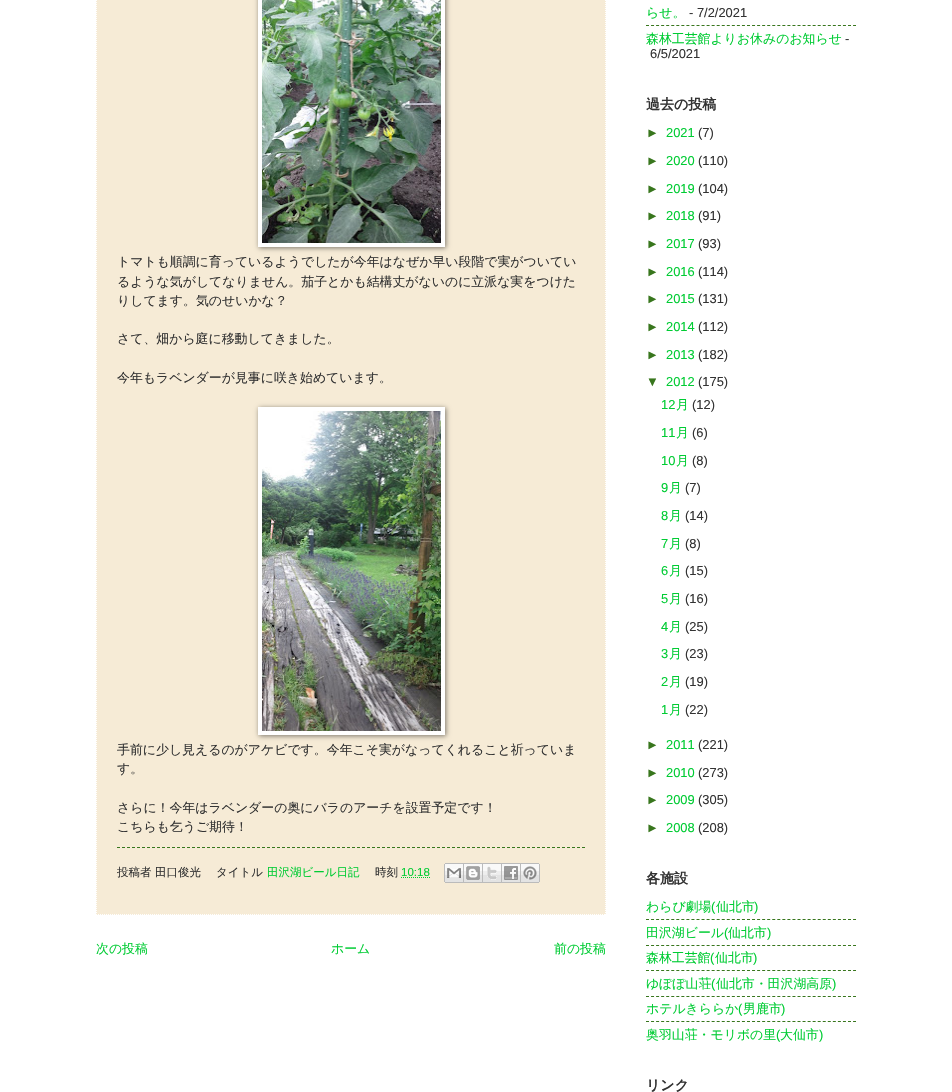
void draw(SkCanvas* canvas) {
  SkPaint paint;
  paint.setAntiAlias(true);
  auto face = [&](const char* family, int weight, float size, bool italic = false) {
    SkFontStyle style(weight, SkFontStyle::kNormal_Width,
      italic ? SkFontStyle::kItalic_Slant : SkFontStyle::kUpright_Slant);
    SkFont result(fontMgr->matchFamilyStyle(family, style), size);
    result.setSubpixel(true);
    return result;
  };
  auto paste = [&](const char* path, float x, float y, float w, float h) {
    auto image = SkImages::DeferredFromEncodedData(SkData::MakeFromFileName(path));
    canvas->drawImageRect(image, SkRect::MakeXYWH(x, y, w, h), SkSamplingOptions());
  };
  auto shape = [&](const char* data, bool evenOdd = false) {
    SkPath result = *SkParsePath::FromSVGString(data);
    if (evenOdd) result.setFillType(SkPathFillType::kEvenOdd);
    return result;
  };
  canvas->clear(0xffffffff);
  paint.setColor(0xfff6ebd6);
  canvas->drawRect(SkRect::MakeXYWH(96, 0, 510, 915), paint);
  paint.setStroke(true);
  paint.setStrokeWidth(1);
  paint.setColor(0xffffffff);
  paint.setPathEffect(SkDashPathEffect::Make({{1, 1}}, 0));
  canvas->drawPath(shape("M605.5-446V915"), paint);
  paint.setPathEffect(nullptr);
  paint.setPathEffect(SkDashPathEffect::Make({{1, 1}}, 0));
  canvas->drawPath(shape("M96 914.5H606"), paint);
  paint.setPathEffect(nullptr);
  paint.setPathEffect(SkDashPathEffect::Make({{1, 1}}, 0));
  canvas->drawPath(shape("M96.5-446V915"), paint);
  paint.setPathEffect(nullptr);
  paint.setStroke(false);
  paint.setColor(0x80000000);
  paint.setMaskFilter(SkMaskFilter::MakeBlur(kNormal_SkBlurStyle, 2.5f));
  canvas->drawRect(SkRect::MakeXYWH(259, -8, 187, 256), paint);
  paint.setMaskFilter(nullptr);
  paint.setColor(0xffffffff);
  canvas->drawRect(SkRect::MakeXYWH(258, 0, 187, 247), paint);
  paste("img/1.png", 262, 0, 179, 243);
  paint.setColor(0x80000000);
  paint.setMaskFilter(SkMaskFilter::MakeBlur(kNormal_SkBlurStyle, 2.5f));
  canvas->drawRect(SkRect::MakeXYWH(259, 408, 187, 328), paint);
  paint.setMaskFilter(nullptr);
  paint.setColor(0xffffffff);
  canvas->drawRect(SkRect::MakeXYWH(258, 407, 187, 328), paint);
  paste("img/2.png", 262, 411, 179, 320);
  paint.setStroke(true);
  paint.setColor(0xff38761d);
  paint.setPathEffect(SkDashPathEffect::Make({{3, 2}}, 0));
  canvas->drawPath(shape("M117 847.5H585"), paint);
  paint.setPathEffect(nullptr);
  paint.setColor(0xff00cc33);
  paint.setPathEffect(SkDashPathEffect::Make({{1, 1}}, 0));
  canvas->drawPath(shape("M401 877.5H430"), paint);
  paint.setPathEffect(nullptr);
  paste("img/3.png", 444, 863, 20, 20);
  paste("img/4.png", 464, 863, 19, 20);
  paste("img/5.png", 483, 863, 19, 20);
  paste("img/6.png", 502, 863, 19, 20);
  paste("img/7.png", 521, 863, 19, 20);
  paint.setColor(0xff38761d);
  paint.setPathEffect(SkDashPathEffect::Make({{3, 2.05f}}, 0));
  canvas->drawPath(shape("M646 25.5H856"), paint);
  paint.setPathEffect(nullptr);
  paint.setPathEffect(SkDashPathEffect::Make({{3, 2.05f}}, 0));
  canvas->drawPath(shape("M646 919.5H856"), paint);
  paint.setPathEffect(nullptr);
  paint.setPathEffect(SkDashPathEffect::Make({{3, 2.05f}}, 0));
  canvas->drawPath(shape("M646 945.5H856"), paint);
  paint.setPathEffect(nullptr);
  paint.setPathEffect(SkDashPathEffect::Make({{3, 2.05f}}, 0));
  canvas->drawPath(shape("M646 970.5H856"), paint);
  paint.setPathEffect(nullptr);
  paint.setPathEffect(SkDashPathEffect::Make({{3, 2.05f}}, 0));
  canvas->drawPath(shape("M646 996.5H856"), paint);
  paint.setPathEffect(nullptr);
  paint.setPathEffect(SkDashPathEffect::Make({{3, 2.05f}}, 0));
  canvas->drawPath(shape("M646 1021.5H856"), paint);
  paint.setPathEffect(nullptr);
  auto f0 = face("WenQuanYi Zen Hei", 500, 12.9f);
  paint.setStroke(false);
  paint.setColor(0xff333333);
  {
    const struct { const char* s; float x, y; } items[] = {
      {"トマトも順調に育っているようでしたが今年はなぜか早い段階で実がついてい", 117, 266},
      {"るような気がしてなりません。茄子とかも結構丈がないのに立派な実をつけた", 117, 286},
      {"りしてます。気のせいかな？", 117, 305},
      {"さて、畑から庭に移動してきました。", 117, 343},
      {"今年もラベンダーが見事に咲き始めています。", 117, 382},
      {"手前に少し見えるのがアケビです。今年こそ実がなってくれること祈っていま", 117, 754},
      {"す。", 117, 773},
      {"さらに！今年はラベンダーの奥にバラのアーチを設置予定です！", 117, 812},
      {"こちらも乞うご期待！", 117, 831},
    };
    for (auto [s, x, y] : items) {
      canvas->drawString(s, x, y, f0, paint);
    }
  }
  auto f1 = face("WenQuanYi Zen Hei", 500, 11.5f);
  canvas->drawString("投稿者 田口俊光", 117, 876, f1, paint);
  canvas->drawString("タイトル", 216, 876, f1, paint);
  paint.setColor(0xff00cc33);
  canvas->drawString("田沢湖ビール日記", 267, 876, f1, paint);
  paint.setColor(0xff333333);
  canvas->drawString("時刻", 375, 876, f1, paint);
  auto f2 = face("Liberation Sans", 400, 11.5f);
  paint.setColor(0xff00cc33);
  canvas->drawString("10:18", 401, 876, f2, paint);
  {
    const struct { const char* s; float x, y; } items[] = {
      {"次の投稿", 96, 953},
      {"ホーム", 331, 953},
      {"前の投稿", 554, 953},
      {"らせ。", 646, 17},
    };
    for (auto [s, x, y] : items) {
      canvas->drawString(s, x, y, f0, paint);
    }
  }
  auto f3 = face("Liberation Sans", 400, 12.9f);
  paint.setColor(0xff333333);
  canvas->drawString("- 7/2/2021", 689, 17, f3, paint);
  paint.setColor(0xff00cc33);
  canvas->drawString("森林工芸館よりお休みのお知らせ", 646, 43, f0, paint);
  paint.setColor(0xff333333);
  canvas->drawString("-", 845, 43, f3, paint);
  canvas->drawString("6/5/2021", 650, 58, f3, paint);
  auto f4 = face("WenQuanYi Zen Hei", 700, 14);
  canvas->drawString("過去の投稿", 646, 109, f4, paint);
  paint.setColor(0xff38761d);
  canvas->drawString("►", 646, 137, f3, paint);
  paint.setColor(0xff00cc33);
  canvas->drawString("2021", 666, 137, f3, paint);
  paint.setColor(0xff333333);
  canvas->drawString("(7)", 698, 137, f3, paint);
  paint.setColor(0xff38761d);
  canvas->drawString("►", 646, 165, f3, paint);
  paint.setColor(0xff00cc33);
  canvas->drawString("2020", 666, 165, f3, paint);
  paint.setColor(0xff333333);
  canvas->drawString("(110)", 698, 165, f3, paint);
  paint.setColor(0xff38761d);
  canvas->drawString("►", 646, 193, f3, paint);
  paint.setColor(0xff00cc33);
  canvas->drawString("2019", 666, 193, f3, paint);
  paint.setColor(0xff333333);
  canvas->drawString("(104)", 698, 193, f3, paint);
  paint.setColor(0xff38761d);
  canvas->drawString("►", 646, 220, f3, paint);
  paint.setColor(0xff00cc33);
  canvas->drawString("2018", 666, 220, f3, paint);
  paint.setColor(0xff333333);
  canvas->drawString("(91)", 698, 220, f3, paint);
  paint.setColor(0xff38761d);
  canvas->drawString("►", 646, 248, f3, paint);
  paint.setColor(0xff00cc33);
  canvas->drawString("2017", 666, 248, f3, paint);
  paint.setColor(0xff333333);
  canvas->drawString("(93)", 698, 248, f3, paint);
  paint.setColor(0xff38761d);
  canvas->drawString("►", 646, 276, f3, paint);
  paint.setColor(0xff00cc33);
  canvas->drawString("2016", 666, 276, f3, paint);
  paint.setColor(0xff333333);
  canvas->drawString("(114)", 698, 276, f3, paint);
  paint.setColor(0xff38761d);
  canvas->drawString("►", 646, 303, f3, paint);
  paint.setColor(0xff00cc33);
  canvas->drawString("2015", 666, 303, f3, paint);
  paint.setColor(0xff333333);
  canvas->drawString("(131)", 698, 303, f3, paint);
  paint.setColor(0xff38761d);
  canvas->drawString("►", 646, 331, f3, paint);
  paint.setColor(0xff00cc33);
  canvas->drawString("2014", 666, 331, f3, paint);
  paint.setColor(0xff333333);
  canvas->drawString("(112)", 698, 331, f3, paint);
  paint.setColor(0xff38761d);
  canvas->drawString("►", 646, 359, f3, paint);
  paint.setColor(0xff00cc33);
  canvas->drawString("2013", 666, 359, f3, paint);
  paint.setColor(0xff333333);
  canvas->drawString("(182)", 698, 359, f3, paint);
  paint.setColor(0xff38761d);
  canvas->drawString("▼", 646, 386, f3, paint);
  paint.setColor(0xff00cc33);
  canvas->drawString("2012", 666, 386, f3, paint);
  paint.setColor(0xff333333);
  canvas->drawString("(175)", 698, 386, f3, paint);
  paint.setColor(0xff00cc33);
  canvas->drawString("12", 661, 409, f3, paint);
  canvas->drawString("月", 676, 409, f0, paint);
  paint.setColor(0xff333333);
  canvas->drawString("(12)", 692, 409, f3, paint);
  paint.setColor(0xff00cc33);
  canvas->drawString("11", 661, 437, f3, paint);
  canvas->drawString("月", 676, 437, f0, paint);
  paint.setColor(0xff333333);
  canvas->drawString("(6)", 692, 437, f3, paint);
  paint.setColor(0xff00cc33);
  canvas->drawString("10", 661, 465, f3, paint);
  canvas->drawString("月", 676, 465, f0, paint);
  paint.setColor(0xff333333);
  canvas->drawString("(8)", 692, 465, f3, paint);
  paint.setColor(0xff00cc33);
  canvas->drawString("9", 661, 492, f3, paint);
  canvas->drawString("月", 669, 492, f0, paint);
  paint.setColor(0xff333333);
  canvas->drawString("(7)", 685, 492, f3, paint);
  paint.setColor(0xff00cc33);
  canvas->drawString("8", 661, 520, f3, paint);
  canvas->drawString("月", 669, 520, f0, paint);
  paint.setColor(0xff333333);
  canvas->drawString("(14)", 685, 520, f3, paint);
  paint.setColor(0xff00cc33);
  canvas->drawString("7", 661, 548, f3, paint);
  canvas->drawString("月", 669, 548, f0, paint);
  paint.setColor(0xff333333);
  canvas->drawString("(8)", 685, 548, f3, paint);
  paint.setColor(0xff00cc33);
  canvas->drawString("6", 661, 575, f3, paint);
  canvas->drawString("月", 669, 575, f0, paint);
  paint.setColor(0xff333333);
  canvas->drawString("(15)", 685, 575, f3, paint);
  paint.setColor(0xff00cc33);
  canvas->drawString("5", 661, 603, f3, paint);
  canvas->drawString("月", 669, 603, f0, paint);
  paint.setColor(0xff333333);
  canvas->drawString("(16)", 685, 603, f3, paint);
  paint.setColor(0xff00cc33);
  canvas->drawString("4", 661, 631, f3, paint);
  canvas->drawString("月", 669, 631, f0, paint);
  paint.setColor(0xff333333);
  canvas->drawString("(25)", 685, 631, f3, paint);
  paint.setColor(0xff00cc33);
  canvas->drawString("3", 661, 658, f3, paint);
  canvas->drawString("月", 669, 658, f0, paint);
  paint.setColor(0xff333333);
  canvas->drawString("(23)", 685, 658, f3, paint);
  paint.setColor(0xff00cc33);
  canvas->drawString("2", 661, 686, f3, paint);
  canvas->drawString("月", 669, 686, f0, paint);
  paint.setColor(0xff333333);
  canvas->drawString("(19)", 685, 686, f3, paint);
  paint.setColor(0xff00cc33);
  canvas->drawString("1", 661, 714, f3, paint);
  canvas->drawString("月", 669, 714, f0, paint);
  paint.setColor(0xff333333);
  canvas->drawString("(22)", 685, 714, f3, paint);
  paint.setColor(0xff38761d);
  canvas->drawString("►", 646, 749, f3, paint);
  paint.setColor(0xff00cc33);
  canvas->drawString("2011", 666, 749, f3, paint);
  paint.setColor(0xff333333);
  canvas->drawString("(221)", 698, 749, f3, paint);
  paint.setColor(0xff38761d);
  canvas->drawString("►", 646, 777, f3, paint);
  paint.setColor(0xff00cc33);
  canvas->drawString("2010", 666, 777, f3, paint);
  paint.setColor(0xff333333);
  canvas->drawString("(273)", 698, 777, f3, paint);
  paint.setColor(0xff38761d);
  canvas->drawString("►", 646, 804, f3, paint);
  paint.setColor(0xff00cc33);
  canvas->drawString("2009", 666, 804, f3, paint);
  paint.setColor(0xff333333);
  canvas->drawString("(305)", 698, 804, f3, paint);
  paint.setColor(0xff38761d);
  canvas->drawString("►", 646, 832, f3, paint);
  paint.setColor(0xff00cc33);
  canvas->drawString("2008", 666, 832, f3, paint);
  paint.setColor(0xff333333);
  canvas->drawString("(208)", 698, 832, f3, paint);
  canvas->drawString("各施設", 646, 883, f4, paint);
  paint.setColor(0xff00cc33);
  canvas->drawString("わらび劇場", 646, 911, f0, paint);
  canvas->drawString("(", 711, 911, f3, paint);
  canvas->drawString("仙北市", 716, 911, f0, paint);
  canvas->drawString(")", 754, 911, f3, paint);
  canvas->drawString("田沢湖ビール", 646, 937, f0, paint);
  canvas->drawString("(", 724, 937, f3, paint);
  canvas->drawString("仙北市", 728, 937, f0, paint);
  canvas->drawString(")", 767, 937, f3, paint);
  canvas->drawString("森林工芸館", 646, 962, f0, paint);
  canvas->drawString("(", 710, 962, f3, paint);
  canvas->drawString("仙北市", 715, 962, f0, paint);
  canvas->drawString(")", 753, 962, f3, paint);
  canvas->drawString("ゆぽぽ山荘", 646, 988, f0, paint);
  canvas->drawString("(", 711, 988, f3, paint);
  canvas->drawString("仙北市・田沢湖高原", 716, 988, f0, paint);
  canvas->drawString(")", 832, 988, f3, paint);
  canvas->drawString("ホテルきららか", 646, 1013, f0, paint);
  canvas->drawString("(", 738, 1013, f3, paint);
  canvas->drawString("男鹿市", 743, 1013, f0, paint);
  canvas->drawString(")", 781, 1013, f3, paint);
  canvas->drawString("奥羽山荘・モリボの里", 646, 1039, f0, paint);
  canvas->drawString("(", 776, 1039, f3, paint);
  canvas->drawString("大仙市", 780, 1039, f0, paint);
  canvas->drawString(")", 819, 1039, f3, paint);
  paint.setColor(0xff333333);
  canvas->drawString("リンク", 646, 1090, f4, paint);
}
